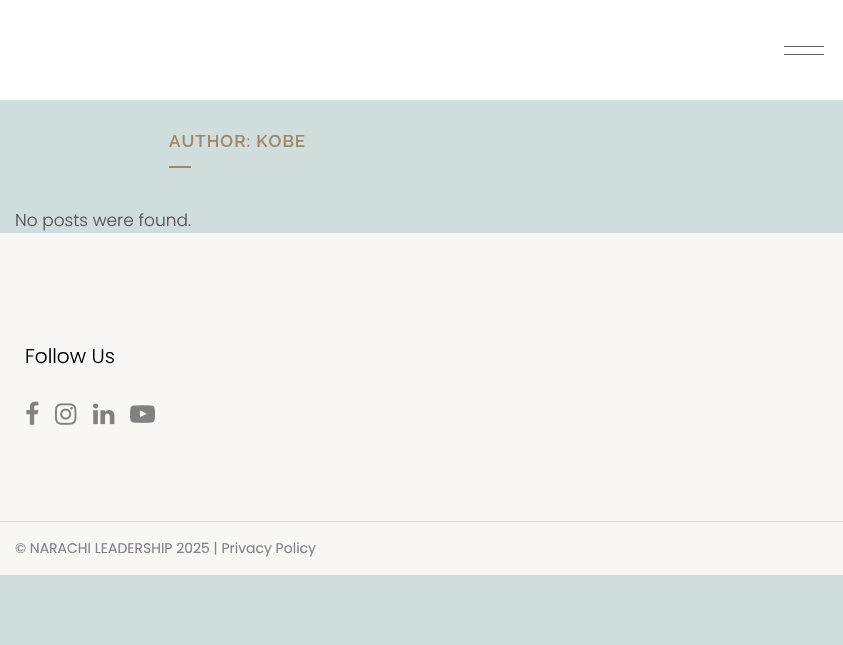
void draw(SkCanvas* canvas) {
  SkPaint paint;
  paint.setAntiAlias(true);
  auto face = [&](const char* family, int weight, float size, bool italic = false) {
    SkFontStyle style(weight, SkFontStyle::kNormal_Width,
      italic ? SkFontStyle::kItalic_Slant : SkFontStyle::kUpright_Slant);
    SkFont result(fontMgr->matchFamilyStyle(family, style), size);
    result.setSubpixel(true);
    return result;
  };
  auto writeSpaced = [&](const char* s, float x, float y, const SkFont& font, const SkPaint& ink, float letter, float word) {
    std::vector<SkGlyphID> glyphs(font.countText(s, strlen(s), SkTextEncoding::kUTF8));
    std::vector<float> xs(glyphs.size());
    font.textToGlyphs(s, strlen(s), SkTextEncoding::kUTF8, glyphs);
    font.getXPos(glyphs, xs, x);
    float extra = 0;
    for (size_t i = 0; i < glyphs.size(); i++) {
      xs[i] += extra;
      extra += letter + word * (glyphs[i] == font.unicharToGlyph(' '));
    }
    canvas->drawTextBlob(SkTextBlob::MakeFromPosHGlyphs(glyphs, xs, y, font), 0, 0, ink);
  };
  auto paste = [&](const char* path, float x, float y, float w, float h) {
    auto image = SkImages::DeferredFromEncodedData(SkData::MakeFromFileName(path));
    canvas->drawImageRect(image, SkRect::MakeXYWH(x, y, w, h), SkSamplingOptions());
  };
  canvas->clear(0xffcfdedd);
  {
    const struct { float x, y, w, h; SkColor color; } items[] = {
      {0, 0, 843, 100, 0xffffffff},
      {784, 46, 40, 1, 0xff61615f},
      {784, 54, 40, 1, 0xff61615f},
      {169, 166, 22, 2, 0xffa28661},
      {0, 233, 843, 288, 0xfff9f6f6},
    };
    for (auto [x, y, w, h, color] : items) {
      paint.setColor(color);
      canvas->drawRect(SkRect::MakeXYWH(x, y, w, h), paint);
    }
  }
  paste("img/1.png", 26, 401, 13, 24);
  paste("img/2.png", 55, 403, 22, 22);
  paste("img/3.png", 93, 403, 22, 22);
  paste("img/4.png", 130, 405, 25, 18);
  canvas->drawRect(SkRect::MakeXYWH(0, 522, 843, 53), paint);
  paint.setColor(0xffdadada);
  canvas->drawRect(SkRect::MakeXYWH(0, 521, 843, 1), paint);
  auto f0 = face("Raleway", 600, 17);
  paint.setColor(0xffa28661);
  writeSpaced("AUTHOR: KOBE", 169, 147, f0, paint, 1, 0);
  auto f1 = face("Poppins", 300, 17);
  paint.setColor(0xff525252);
  canvas->drawString("No posts were found.", 15, 226, f1, paint);
  auto f2 = face("Poppins", 300, 20);
  paint.setColor(0xff000000);
  canvas->drawString("Follow Us", 25, 363, f2, paint);
  auto f3 = face("Poppins", 400, 14);
  paint.setColor(0xff808285);
  canvas->drawString("© NARACHI LEADERSHIP 2025 | Privacy Policy", 15, 553, f3, paint);
}
